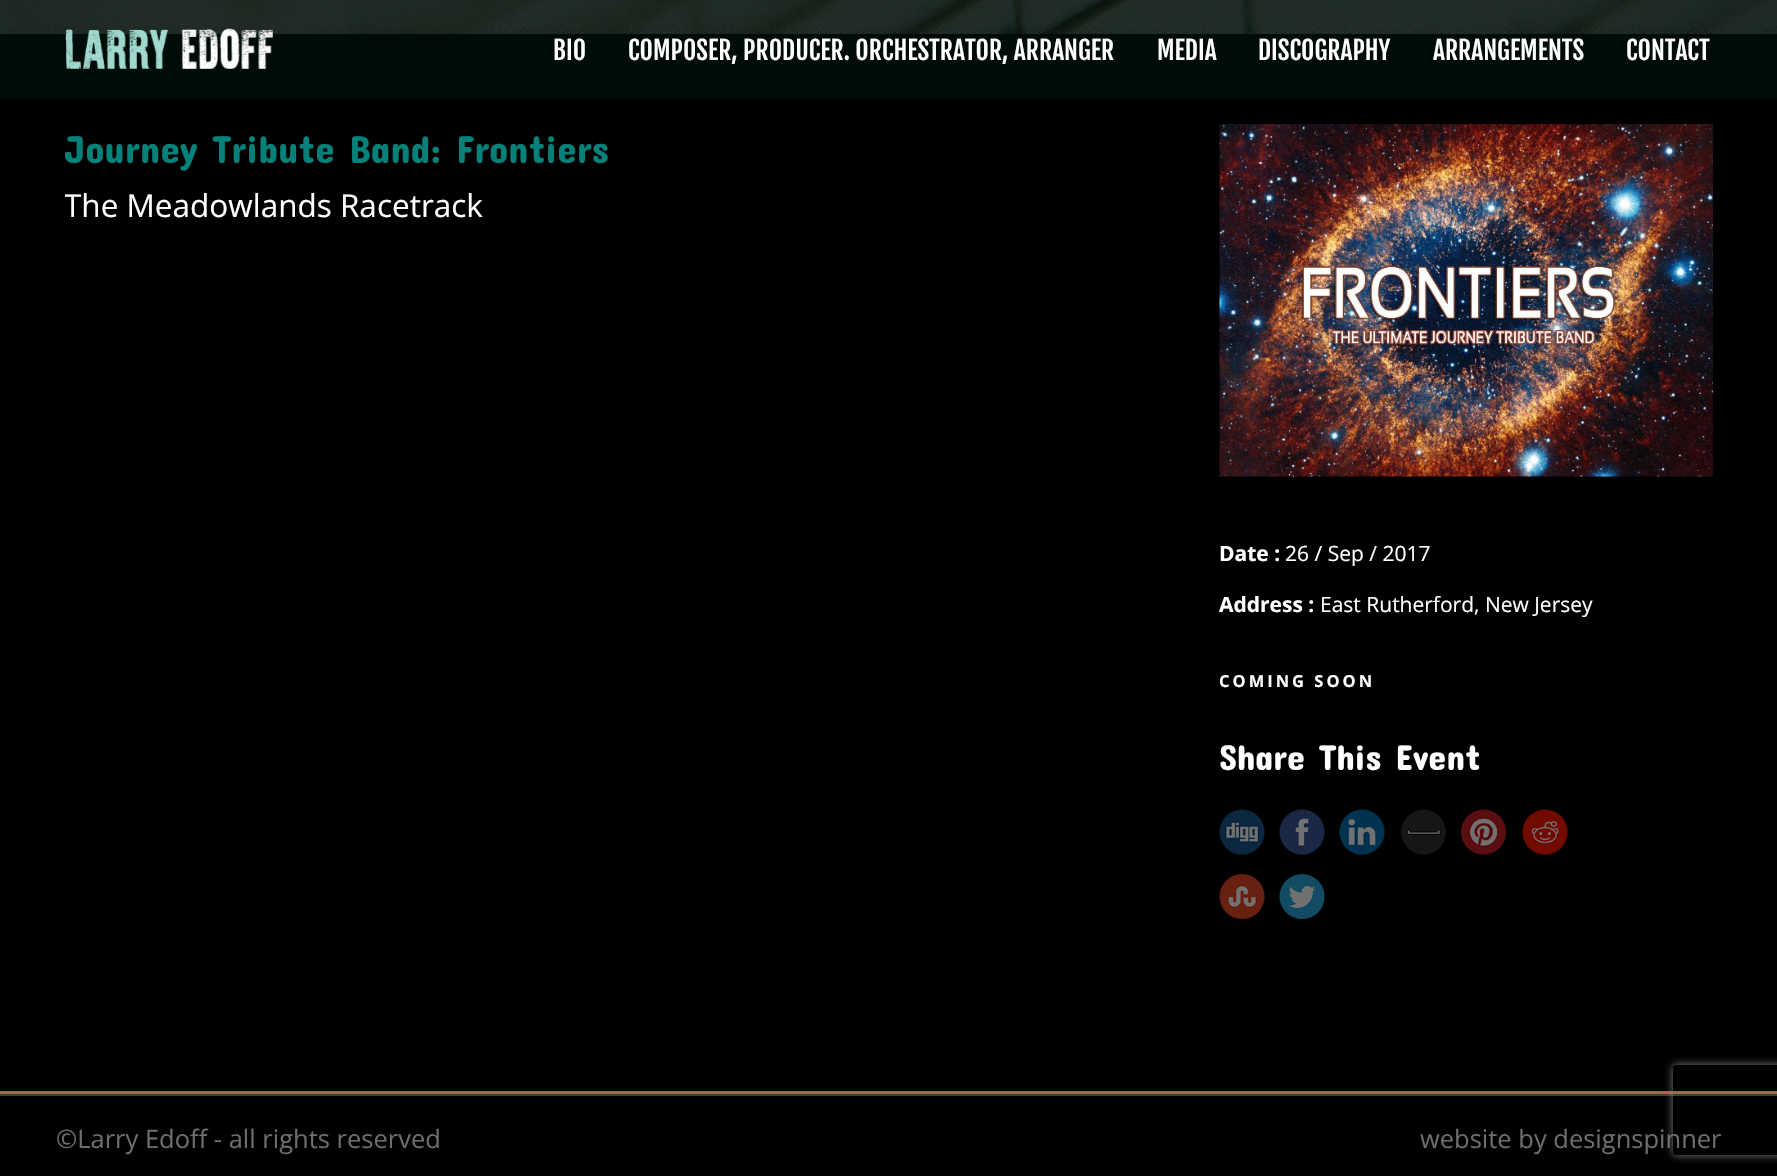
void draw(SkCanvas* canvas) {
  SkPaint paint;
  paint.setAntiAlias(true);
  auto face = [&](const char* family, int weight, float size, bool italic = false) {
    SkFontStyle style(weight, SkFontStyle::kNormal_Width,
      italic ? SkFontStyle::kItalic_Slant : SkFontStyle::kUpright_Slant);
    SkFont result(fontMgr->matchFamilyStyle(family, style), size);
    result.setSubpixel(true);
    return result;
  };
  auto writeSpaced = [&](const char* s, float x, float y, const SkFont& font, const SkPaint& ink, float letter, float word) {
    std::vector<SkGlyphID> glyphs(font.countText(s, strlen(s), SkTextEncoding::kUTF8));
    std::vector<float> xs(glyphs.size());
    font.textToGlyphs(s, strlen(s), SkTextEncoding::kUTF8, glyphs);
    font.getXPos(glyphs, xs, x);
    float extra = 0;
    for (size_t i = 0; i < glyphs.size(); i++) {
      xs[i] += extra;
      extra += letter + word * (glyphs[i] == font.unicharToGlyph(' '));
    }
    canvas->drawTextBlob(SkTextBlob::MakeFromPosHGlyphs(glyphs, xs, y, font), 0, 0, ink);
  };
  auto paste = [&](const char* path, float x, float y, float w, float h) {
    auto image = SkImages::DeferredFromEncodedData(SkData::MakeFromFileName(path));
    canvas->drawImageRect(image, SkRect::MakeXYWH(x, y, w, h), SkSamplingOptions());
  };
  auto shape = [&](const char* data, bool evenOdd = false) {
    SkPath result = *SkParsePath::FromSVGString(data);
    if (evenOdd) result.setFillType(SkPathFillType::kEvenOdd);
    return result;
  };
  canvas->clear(0xff000000);
  paint.setColor(0xff000c0a);
  canvas->drawRect(SkRect::MakeXYWH(0, 34, 1777, 65), paint);
  paste("img/2.png", 0, 0, 1777, 34);
  paste("img/3.png", 0, 26, 1777, 8);
  paste("img/1.png", 65, 28, 208, 41);
  paste("img/4.png", 1219, 124, 494, 353);
  paste("img/5.png", 1219, 809, 46, 46);
  paste("img/6.png", 1279, 809, 46, 46);
  paste("img/7.png", 1339, 809, 46, 46);
  paste("img/8.png", 1401, 809, 45, 46);
  paste("img/9.png", 1461, 809, 45, 46);
  paste("img/10.png", 1522, 809, 46, 46);
  paste("img/11.png", 1219, 874, 46, 45);
  paste("img/12.png", 1279, 874, 46, 45);
  paint.setColor(0xffb95d50);
  canvas->drawRect(SkRect::MakeXYWH(0, 1091, 1777, 3), paint);
  paint.setColor(0xff3f3f3f);
  canvas->drawRect(SkRect::MakeXYWH(0, 1094, 1777, 2), paint);
  canvas->save();
  canvas->clipPath(shape("M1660 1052H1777V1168H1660ZM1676 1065H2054C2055.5 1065 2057 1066.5 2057 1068V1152C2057 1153.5 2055.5 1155 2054 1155H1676C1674.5 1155 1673 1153.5 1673 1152V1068C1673 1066.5 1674.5 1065 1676 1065Z", true), true);
  paint.setColor(0xff808080);
  paint.setMaskFilter(SkMaskFilter::MakeBlur(kNormal_SkBlurStyle, 4));
  canvas->drawRoundRect(SkRect::MakeXYWH(1673, 1065, 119, 90), 3, 3, paint);
  paint.setMaskFilter(nullptr);
  canvas->restore();
  auto f0 = face("Fjalla One", 400, 25.5f);
  paint.setColor(0xffffffff);
  {
    const struct { const char* s; float x, y; } items[] = {
      {"BIO", 553, 60},
      {"COMPOSER, PRODUCER. ORCHESTRATOR, ARRANGER", 628, 60},
      {"MEDIA", 1157, 60},
      {"DISCOGRAPHY", 1258, 60},
      {"ARRANGEMENTS", 1433, 60},
      {"CONTACT", 1626, 60},
    };
    for (auto [s, x, y] : items) {
      canvas->drawString(s, x, y, f0, paint);
    }
  }
  canvas->save();
  canvas->clipRect(SkRect::MakeXYWH(65, 125, 1095, 138));
  auto f1 = face("Concert One", 400, 39);
  paint.setColor(0xff068179);
  canvas->drawString("Journey Tribute Band: Frontiers", 64, 163, f1, paint);
  auto f2 = face("Open Sans", 400, 31.5f);
  paint.setColor(0xffffffff);
  canvas->drawString("The Meadowlands Racetrack", 64, 217, f2, paint);
  canvas->restore();
  auto f3 = face("Open Sans", 700, 21);
  canvas->drawString("Date :", 1219, 561, f3, paint);
  auto f4 = face("Open Sans", 400, 21);
  canvas->drawString("26 / Sep / 2017", 1285, 561, f4, paint);
  canvas->drawString("Address :", 1219, 612, f3, paint);
  canvas->drawString("East Rutherford, New Jersey", 1320, 612, f4, paint);
  auto f5 = face("Open Sans", 700, 16.5f);
  writeSpaced("COMING SOON", 1219, 687, f5, paint, 3, 0);
  auto f6 = face("Concert One", 400, 36);
  canvas->drawString("Share This Event", 1219, 770, f6, paint);
  auto f7 = face("Open Sans", 400, 25.5f);
  paint.setColor(0xff6d6d6d);
  canvas->drawString("©Larry Edoff - all rights reserved", 56, 1148, f7, paint);
  canvas->drawString("website by designspinner", 1420, 1148, f7, paint);
}
